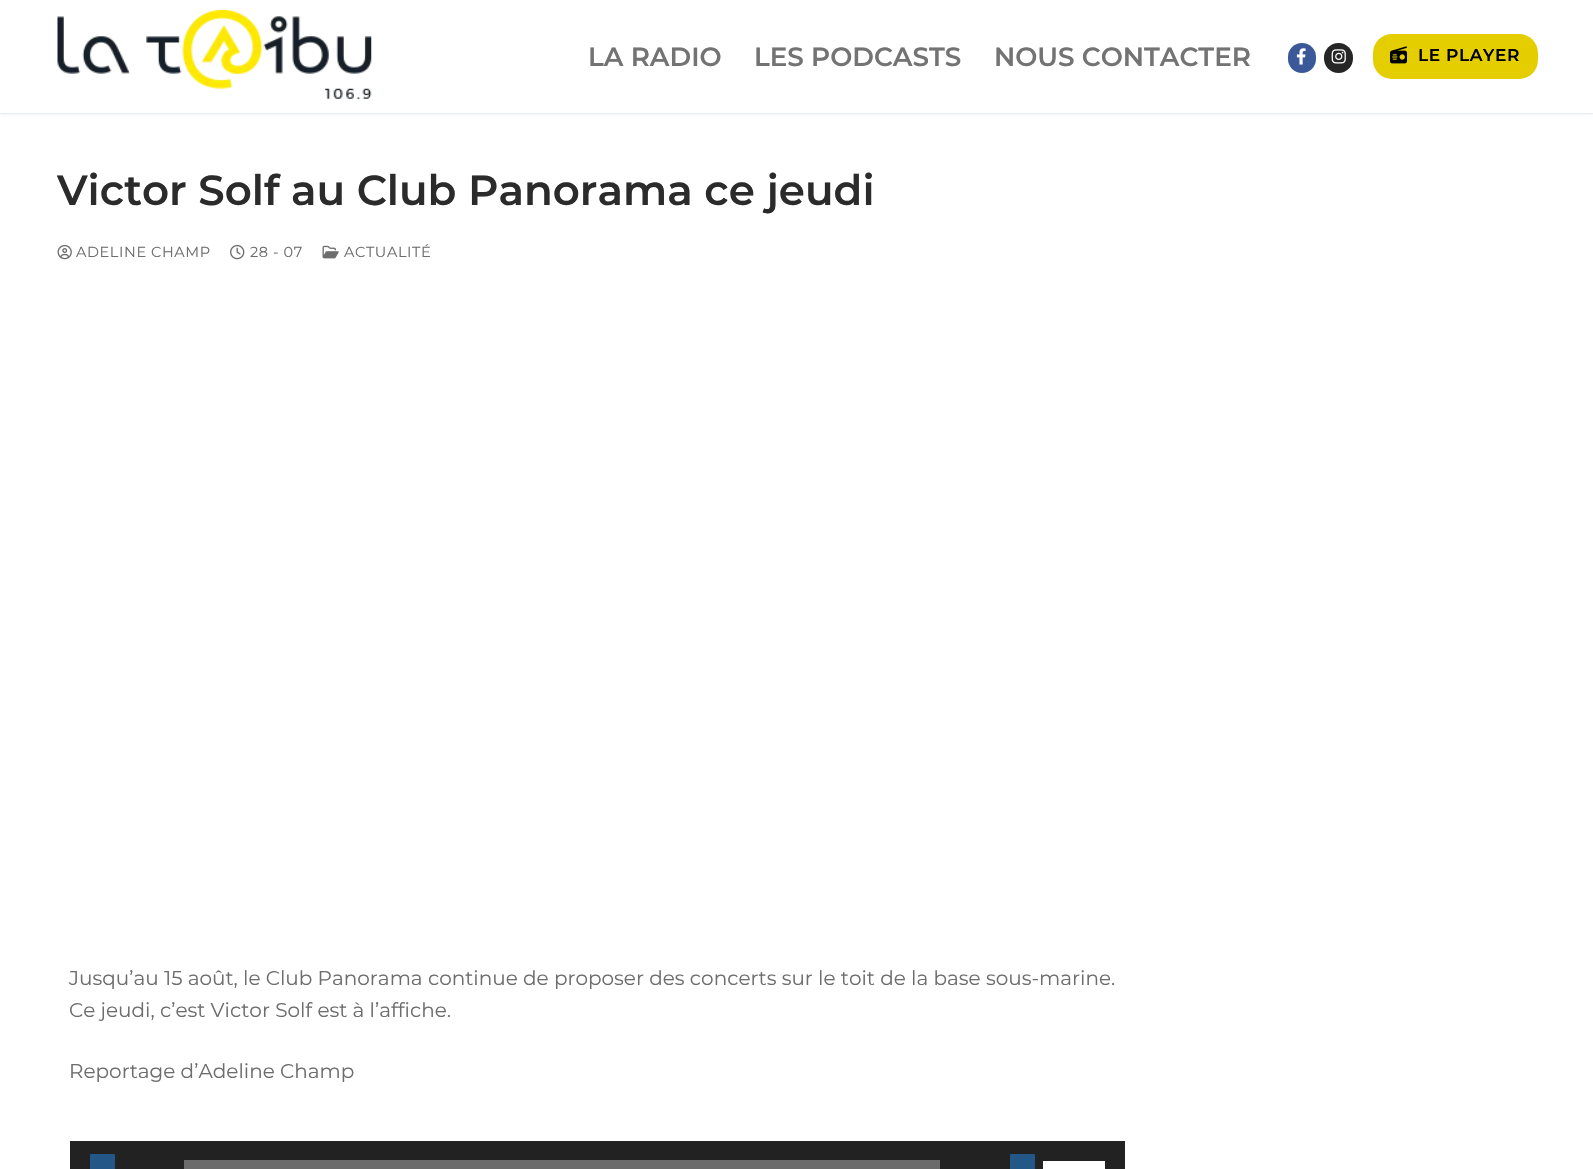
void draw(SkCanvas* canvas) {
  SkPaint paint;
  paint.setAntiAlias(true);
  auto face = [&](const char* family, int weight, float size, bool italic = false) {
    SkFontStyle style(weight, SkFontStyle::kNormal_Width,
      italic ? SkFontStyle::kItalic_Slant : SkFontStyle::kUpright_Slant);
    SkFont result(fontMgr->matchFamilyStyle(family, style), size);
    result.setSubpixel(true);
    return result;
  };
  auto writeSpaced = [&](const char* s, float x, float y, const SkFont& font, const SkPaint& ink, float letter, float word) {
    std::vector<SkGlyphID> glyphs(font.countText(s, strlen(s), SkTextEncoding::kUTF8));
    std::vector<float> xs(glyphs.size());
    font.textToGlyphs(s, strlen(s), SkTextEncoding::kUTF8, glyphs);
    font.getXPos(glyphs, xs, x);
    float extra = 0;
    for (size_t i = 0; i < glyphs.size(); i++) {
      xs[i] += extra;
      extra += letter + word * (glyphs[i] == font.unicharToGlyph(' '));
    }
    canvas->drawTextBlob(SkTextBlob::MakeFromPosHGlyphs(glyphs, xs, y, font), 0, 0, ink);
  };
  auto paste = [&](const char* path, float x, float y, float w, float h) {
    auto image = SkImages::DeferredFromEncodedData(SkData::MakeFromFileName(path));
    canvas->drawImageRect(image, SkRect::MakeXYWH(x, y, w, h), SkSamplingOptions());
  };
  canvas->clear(0xffffffff);
  paint.setColor(0xffe1e5ea);
  paint.setMaskFilter(SkMaskFilter::MakeBlur(kNormal_SkBlurStyle, 1));
  canvas->drawRect(SkRect::MakeXYWH(0, 1, 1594, 113), paint);
  paint.setMaskFilter(nullptr);
  paint.setColor(0xffffffff);
  canvas->drawRect(SkRect::MakeXYWH(0, 0, 1593, 113), paint);
  paste("img/1.png", 57, 10, 315, 89);
  paint.setColor(0xff3b5998);
  canvas->drawRoundRect(SkRect::MakeXYWH(1288, 43, 28, 30), 14, 14, paint);
  paste("img/2.png", 1296, 48, 10, 17);
  paint.setColor(0xff262626);
  canvas->drawRoundRect(SkRect::MakeXYWH(1324, 43, 29, 30), 14.5f, 14.5f, paint);
  paste("img/3.png", 1331, 49, 15, 15);
  paint.setColor(0xffe5ce00);
  canvas->drawRoundRect(SkRect::MakeXYWH(1373, 34, 165, 45), 19, 19, paint);
  paste("img/4.png", 1390, 46, 17, 18);
  paste("img/5.png", 57, 244, 15, 16);
  paste("img/6.png", 230, 244, 15, 16);
  paste("img/7.png", 322, 245, 17, 14);
  paint.setColor(0xff222222);
  canvas->drawRect(SkRect::MakeXYWH(70, 1141, 1055, 28), paint);
  paint.setColor(0xff235787);
  canvas->drawRoundRect(SkRect::MakeXYWH(90, 1154, 25, 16), 1, 1, paint);
  paint.setColor(0xff6b6b6b);
  canvas->drawRect(SkRect::MakeXYWH(184, 1160, 756, 9), paint);
  paint.setColor(0xff235787);
  canvas->drawRoundRect(SkRect::MakeXYWH(1010, 1154, 25, 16), 1, 1, paint);
  paint.setColor(0xffffffff);
  canvas->drawRect(SkRect::MakeXYWH(1043, 1161, 62, 8), paint);
  auto f0 = face("Montserrat", 600, 26.25f);
  paint.setColor(0xff737373);
  {
    const struct { const char* s; float x, y; } items[] = {
      {"LA RADIO", 588, 66},
      {"LES PODCASTS", 754, 66},
      {"NOUS CONTACTER", 994, 66},
    };
    for (auto [s, x, y] : items) {
      canvas->drawString(s, x, y, f0, paint);
    }
  }
  auto f1 = face("Montserrat", 600, 17);
  paint.setColor(0xff000000);
  writeSpaced("LE PLAYER", 1418, 61, f1, paint, 0.6f, 0);
  auto f2 = face("Montserrat", 600, 42);
  paint.setColor(0xff2b2b2b);
  canvas->drawString("Victor Solf au Club Panorama ce jeudi", 57, 205, f2, paint);
  auto f3 = face("Montserrat", 400, 14.5f);
  paint.setColor(0xff6d6d6d);
  {
    const struct { const char* s; float x, y; } items[] = {
      {"ADELINE CHAMP", 76, 257},
      {"28 - 07", 250, 257},
      {"ACTUALITÉ", 344, 257},
    };
    for (auto [s, x, y] : items) {
      writeSpaced(s, x, y, f3, paint, 0.6f, 0);
    }
  }
  auto f4 = face("Montserrat", 400, 20);
  {
    const struct { const char* s; float x, y; } items[] = {
      {"Jusqu’au 15 août, le Club Panorama continue de proposer des concerts sur le toit de la base sous-marine.", 69, 985},
      {"Ce jeudi, c’est Victor Solf est à l’affiche.", 69, 1017},
      {"Reportage d’Adeline Champ", 69, 1078},
    };
    for (auto [s, x, y] : items) {
      canvas->drawString(s, x, y, f4, paint);
    }
  }
}
